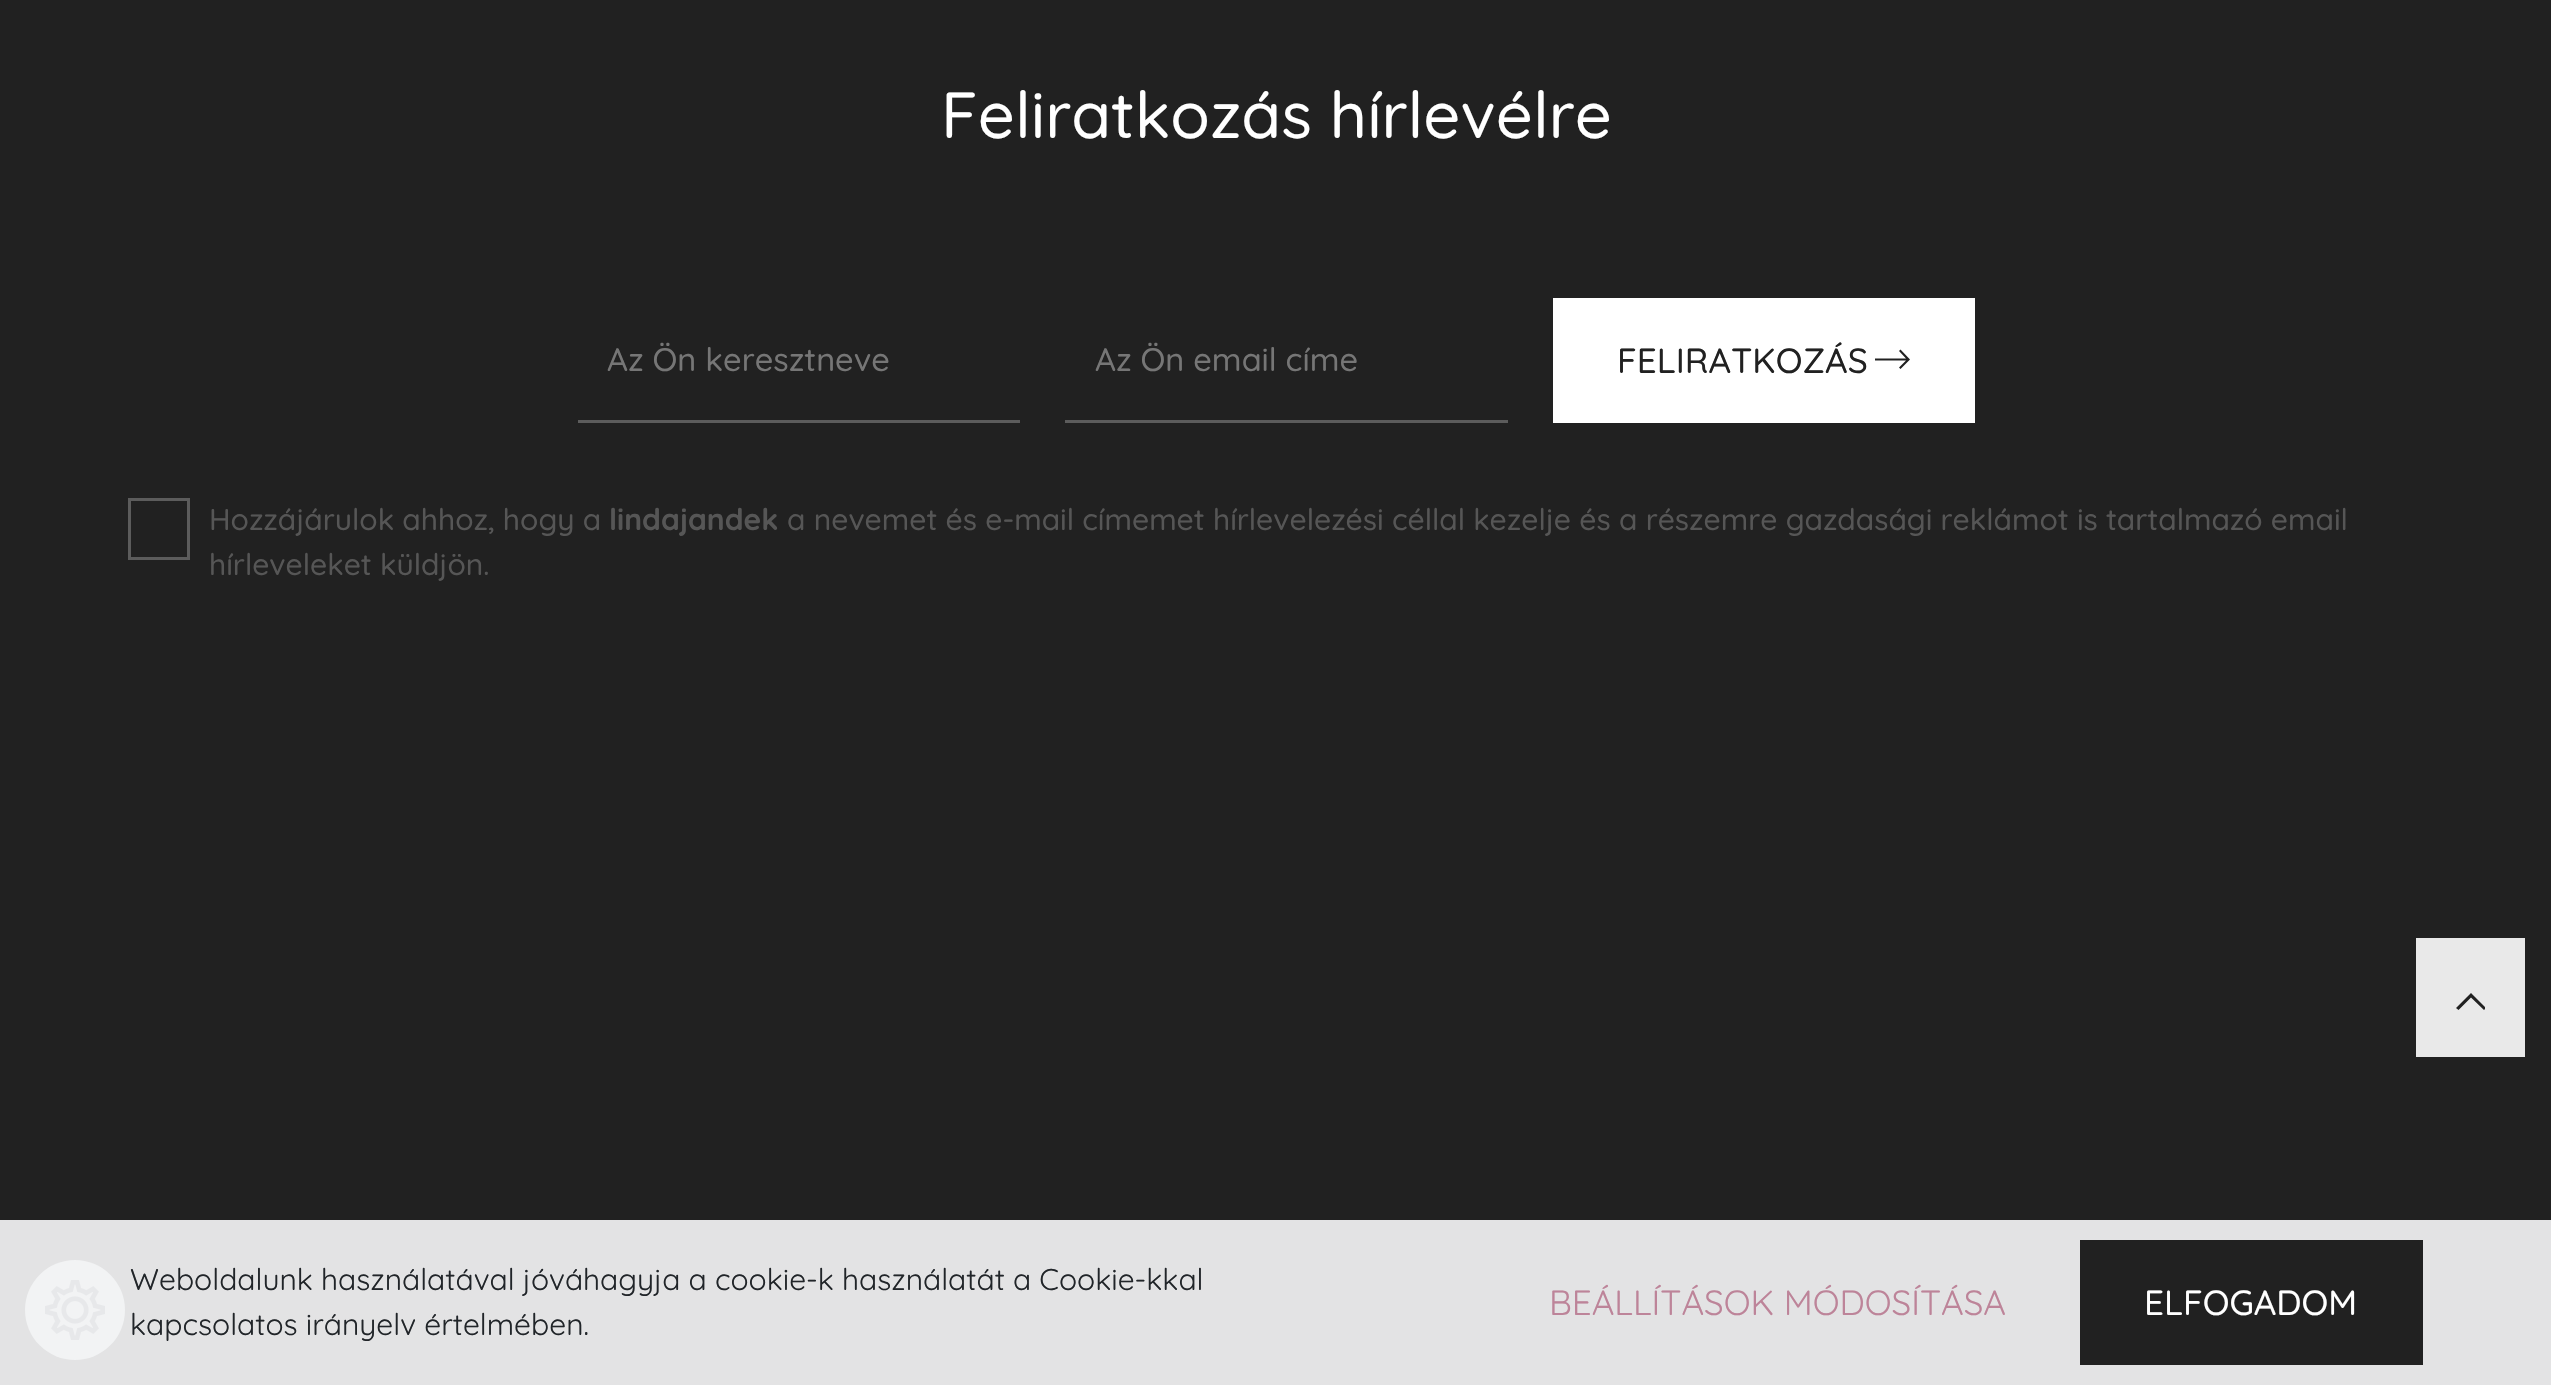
void draw(SkCanvas* canvas) {
  SkPaint paint;
  paint.setAntiAlias(true);
  auto face = [&](const char* family, int weight, float size, bool italic = false) {
    SkFontStyle style(weight, SkFontStyle::kNormal_Width,
      italic ? SkFontStyle::kItalic_Slant : SkFontStyle::kUpright_Slant);
    SkFont result(fontMgr->matchFamilyStyle(family, style), size);
    result.setSubpixel(true);
    return result;
  };
  auto paste = [&](const char* path, float x, float y, float w, float h) {
    auto image = SkImages::DeferredFromEncodedData(SkData::MakeFromFileName(path));
    canvas->drawImageRect(image, SkRect::MakeXYWH(x, y, w, h), SkSamplingOptions());
  };
  auto shape = [&](const char* data, bool evenOdd = false) {
    SkPath result = *SkParsePath::FromSVGString(data);
    if (evenOdd) result.setFillType(SkPathFillType::kEvenOdd);
    return result;
  };
  canvas->clear(0xff212121);
  {
    const struct { float x, y, w, h; SkColor color; } items[] = {
      {0, 1220, 2551, 165, 0xffe3e3e4},
      {578, 420, 442, 3, 0xff5c5c5c},
      {1065, 420, 443, 3, 0xff5c5c5c},
      {1553, 298, 422, 125, 0xffffffff},
    };
    for (auto [x, y, w, h, color] : items) {
      paint.setColor(color);
      canvas->drawRect(SkRect::MakeXYWH(x, y, w, h), paint);
    }
  }
  paint.setColor(0xff212121);
  canvas->drawPath(shape("M1875 360.5H1906L1899 367.5L1900.5 369L1910 359.5L1900.5 349.5L1899 351L1906 358.5H1875Z"), paint);
  paint.setStroke(true);
  paint.setStrokeWidth(3);
  paint.setColor(0xff5c5c5c);
  canvas->drawRect(SkRect::MakeXYWH(129.5f, 499.5f, 59, 59), paint);
  paint.setStroke(false);
  paint.setColor(0xffe9e9e9);
  canvas->drawRect(SkRect::MakeXYWH(2416, 938, 109, 119), paint);
  paint.setColor(0xff212121);
  canvas->drawPath(shape("M2456 1008L2471 993L2485 1007V1009L2484 1010L2471 997.5L2458.5 1010Z"), paint);
  paint.setColor(0xfff2f3f4);
  canvas->drawCircle(75, 1310, 50, paint);
  paste("img/1.png", 45, 1280, 60, 60);
  paint.setColor(0xff212121);
  canvas->drawRect(SkRect::MakeXYWH(2080, 1240, 343, 125), paint);
  auto f0 = face("Quicksand", 500, 65);
  paint.setColor(0xffffffff);
  canvas->drawString("Feliratkozás hírlevélre", 941, 138, f0, paint);
  auto f1 = face("Quicksand", 500, 32.5f);
  paint.setColor(0xff767676);
  canvas->drawString("Az Ön keresztneve", 607, 371, f1, paint);
  canvas->drawString("Az Ön email címe", 1095, 371, f1, paint);
  auto f2 = face("Quicksand", 500, 35);
  paint.setColor(0xff212121);
  canvas->drawString("FELIRATKOZÁS", 1617, 373, f2, paint);
  auto f3 = face("Quicksand", 500, 30);
  paint.setColor(0xff565656);
  canvas->drawString("Hozzájárulok ahhoz, hogy a", 209, 530, f3, paint);
  auto f4 = face("Quicksand", 700, 30);
  canvas->drawString("lindajandek", 609, 530, f4, paint);
  canvas->drawString("a nevemet és e-mail címemet hírlevelezési céllal kezelje és a részemre gazdasági reklámot is tartalmazó email", 787, 530, f3, paint);
  canvas->drawString("hírleveleket küldjön.", 209, 575, f3, paint);
  auto f5 = face("Quicksand", 400, 30);
  paint.setColor(0xff212529);
  canvas->drawString("Weboldalunk használatával jóváhagyja a cookie-k használatát a Cookie-kkal", 130, 1290, f5, paint);
  canvas->drawString("kapcsolatos irányelv értelmében.", 130, 1335, f5, paint);
  auto f6 = face("Quicksand", 400, 35);
  paint.setColor(0xffbd8499);
  canvas->drawString("BEÁLLÍTÁSOK MÓDOSÍTÁSA", 1549, 1315, f6, paint);
  paint.setColor(0xffffffff);
  canvas->drawString("ELFOGADOM", 2144, 1315, f2, paint);
}
